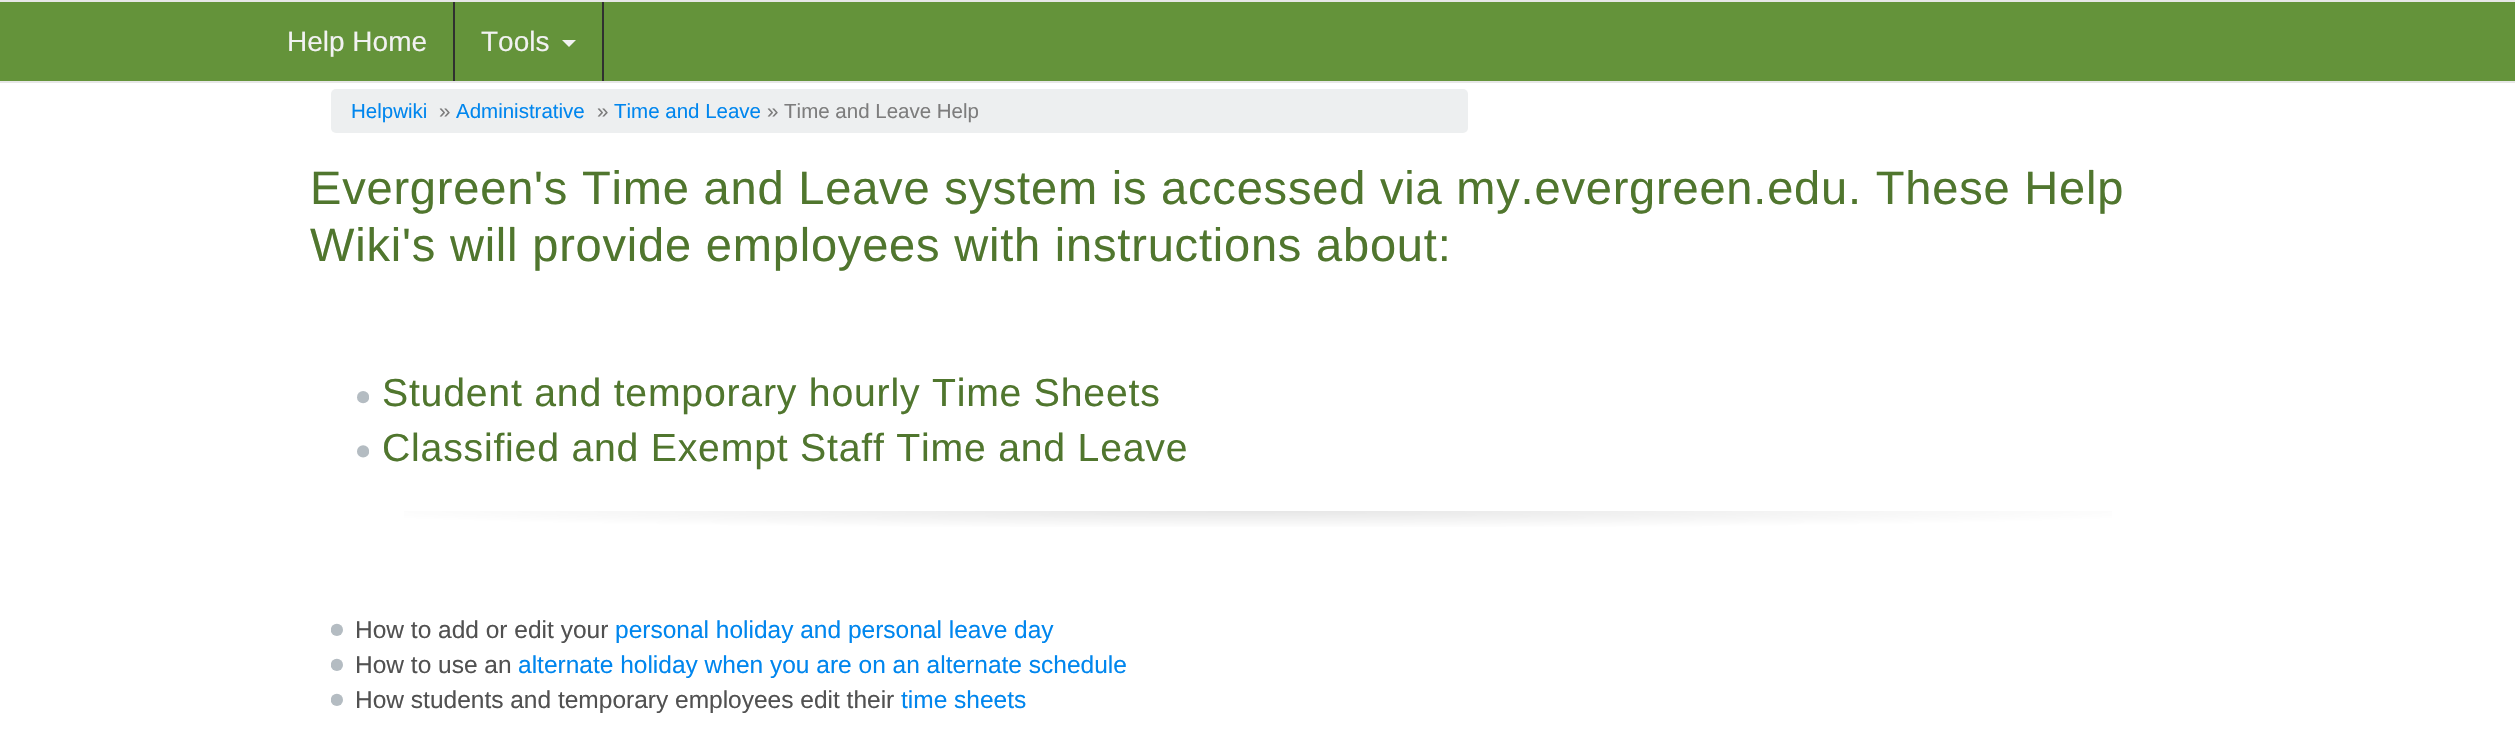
void draw(SkCanvas* canvas) {
  SkPaint paint;
  paint.setAntiAlias(true);
  auto face = [&](const char* family, int weight, float size, bool italic = false) {
    SkFontStyle style(weight, SkFontStyle::kNormal_Width,
      italic ? SkFontStyle::kItalic_Slant : SkFontStyle::kUpright_Slant);
    SkFont result(fontMgr->matchFamilyStyle(family, style), size);
    result.setSubpixel(true);
    return result;
  };
  auto writeSpaced = [&](const char* s, float x, float y, const SkFont& font, const SkPaint& ink, float letter, float word) {
    std::vector<SkGlyphID> glyphs(font.countText(s, strlen(s), SkTextEncoding::kUTF8));
    std::vector<float> xs(glyphs.size());
    font.textToGlyphs(s, strlen(s), SkTextEncoding::kUTF8, glyphs);
    font.getXPos(glyphs, xs, x);
    float extra = 0;
    for (size_t i = 0; i < glyphs.size(); i++) {
      xs[i] += extra;
      extra += letter + word * (glyphs[i] == font.unicharToGlyph(' '));
    }
    canvas->drawTextBlob(SkTextBlob::MakeFromPosHGlyphs(glyphs, xs, y, font), 0, 0, ink);
  };
  auto paste = [&](const char* path, float x, float y, float w, float h) {
    auto image = SkImages::DeferredFromEncodedData(SkData::MakeFromFileName(path));
    canvas->drawImageRect(image, SkRect::MakeXYWH(x, y, w, h), SkSamplingOptions());
  };
  auto shape = [&](const char* data, bool evenOdd = false) {
    SkPath result = *SkParsePath::FromSVGString(data);
    if (evenOdd) result.setFillType(SkPathFillType::kEvenOdd);
    return result;
  };
  canvas->clear(0xffffffff);
  {
    const struct { float x, y, w, h; SkColor color; } items[] = {
      {0, 2, 2515, 79, 0xff64933a},
      {0, 0, 2515, 2, 0xffe7e7e7},
      {0, 81, 2515, 2, 0xffe7e7e7},
      {453, 2, 2, 79, 0xff303030},
      {602, 2, 2, 79, 0xff303030},
    };
    for (auto [x, y, w, h, color] : items) {
      paint.setColor(color);
      canvas->drawRect(SkRect::MakeXYWH(x, y, w, h), paint);
    }
  }
  paint.setColor(0xfff2f2f2);
  canvas->drawPath(shape("M562 40H576L569 47Z"), paint);
  paint.setColor(0xffedeff0);
  canvas->drawRoundRect(SkRect::MakeXYWH(331, 89, 1137, 44), 5, 5, paint);
  paste("img/1.png", 357, 391, 12, 13);
  paste("img/2.png", 357, 445, 12, 13);
  {
    const SkColor colors[] = {0xffe6e6e6, 0xffffffff};
    const float stops[] = {0, 1};
    SkMatrix m = SkMatrix::Translate(1258, 511).preScale(949, 18);
    paint.setShader(SkGradientShader::MakeRadial({0, 0}, 1, colors, stops, 2, SkTileMode::kClamp, 0, &m));
    paint.setAlpha(255);
  }
  canvas->drawRect(SkRect::MakeXYWH(404, 511, 1708, 16), paint);
  paste("img/3.png", 331, 623, 12, 13);
  paste("img/3.png", 331, 658, 12, 13);
  paste("img/3.png", 331, 693, 12, 13);
  auto f0 = face("Liberation Sans", 400, 28);
  paint.setShader(nullptr);
  paint.setColor(0xfff2f2f2);
  canvas->drawString("Help Home", 287, 51, f0, paint);
  canvas->drawString("Tools", 481, 51, f0, paint);
  auto f1 = face("Liberation Sans", 400, 20.5f);
  paint.setColor(0xff0086ee);
  canvas->drawString("Helpwiki", 351, 118, f1, paint);
  paint.setColor(0xff7d7d7d);
  canvas->drawString("»", 439, 118, f1, paint);
  paint.setColor(0xff0086ee);
  canvas->drawString("Administrative", 456, 118, f1, paint);
  paint.setColor(0xff7d7d7d);
  canvas->drawString("»", 597, 118, f1, paint);
  paint.setColor(0xff0086ee);
  canvas->drawString("Time and Leave", 614, 118, f1, paint);
  paint.setColor(0xff7d7d7d);
  canvas->drawString("» Time and Leave Help", 767, 118, f1, paint);
  auto f2 = face("Liberation Sans", 400, 47.05f);
  paint.setColor(0xff50762e);
  writeSpaced("Evergreen's Time and Leave system is accessed via my.evergreen.edu. These Help", 310, 204, f2, paint, 0.78f, 0);
  writeSpaced("Wiki's will provide employees with instructions about:", 310, 261, f2, paint, 0.78f, 0);
  auto f3 = face("Liberation Sans", 400, 39.2f);
  writeSpaced("Student and temporary hourly Time Sheets", 382, 406, f3, paint, 0.78f, 0);
  writeSpaced("Classified and Exempt Staff Time and Leave", 382, 461, f3, paint, 0.78f, 0);
  auto f4 = face("Liberation Sans", 400, 24.5f);
  paint.setColor(0xff515151);
  canvas->drawString("How to add or edit your", 355, 638, f4, paint);
  paint.setColor(0xff0086ee);
  canvas->drawString("personal holiday and personal leave day", 615, 638, f4, paint);
  paint.setColor(0xff515151);
  canvas->drawString("How to use an", 355, 673, f4, paint);
  paint.setColor(0xff0086ee);
  canvas->drawString("alternate holiday when you are on an alternate schedule", 518, 673, f4, paint);
  paint.setColor(0xff515151);
  canvas->drawString("How students and temporary employees edit their", 355, 708, f4, paint);
  paint.setColor(0xff0086ee);
  canvas->drawString("time sheets", 901, 708, f4, paint);
}
